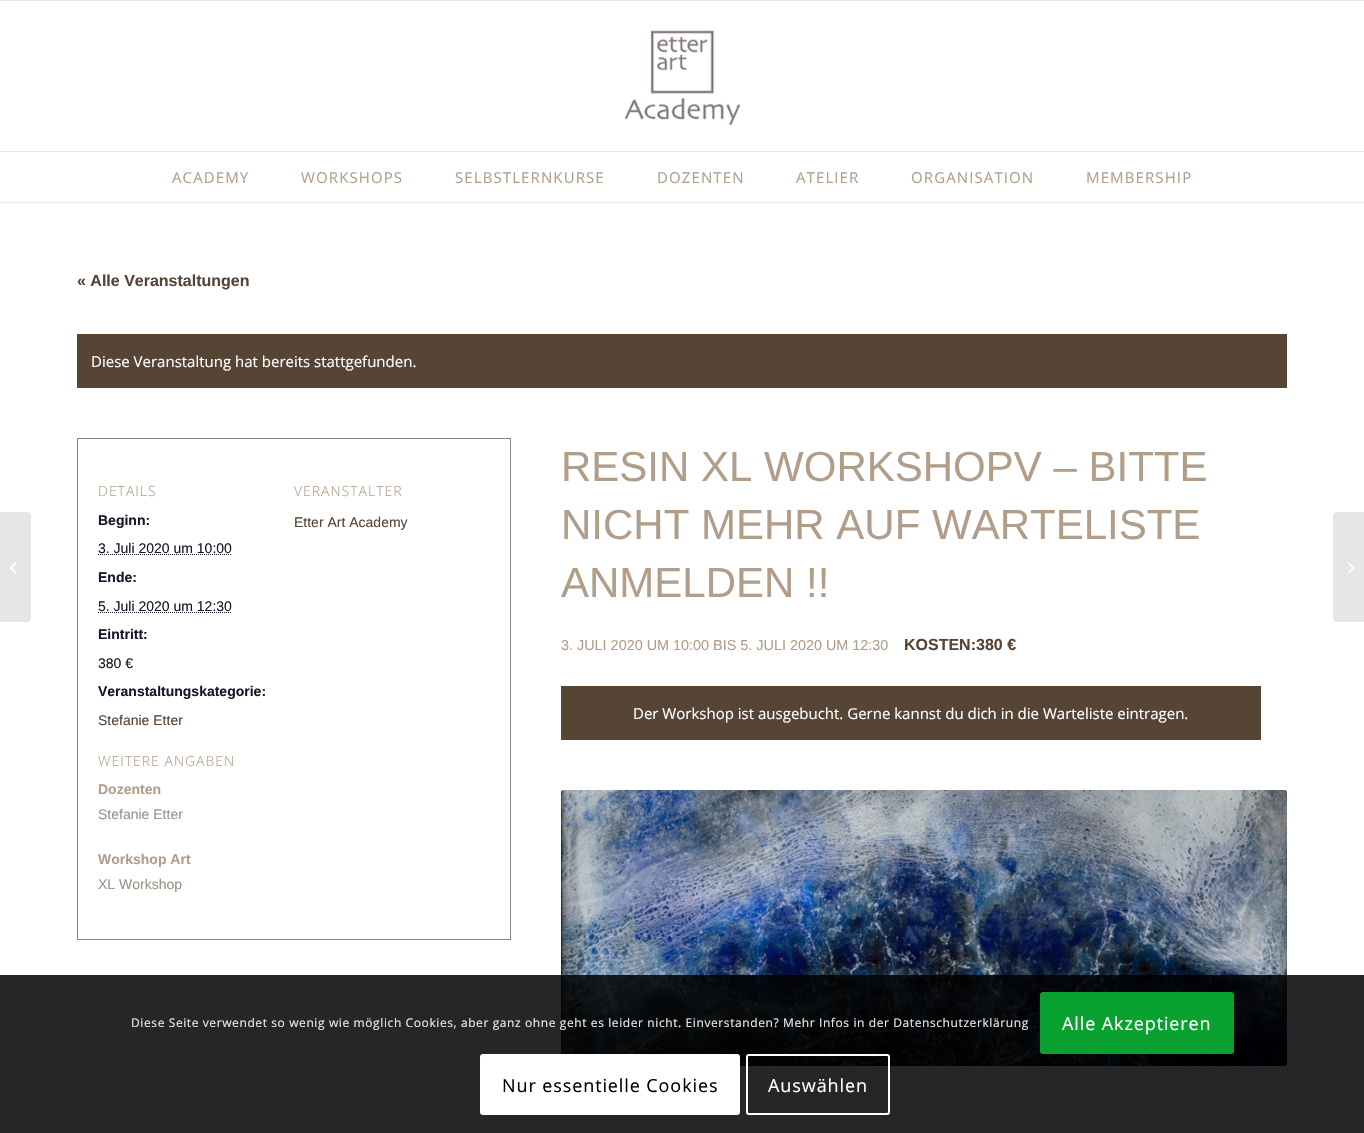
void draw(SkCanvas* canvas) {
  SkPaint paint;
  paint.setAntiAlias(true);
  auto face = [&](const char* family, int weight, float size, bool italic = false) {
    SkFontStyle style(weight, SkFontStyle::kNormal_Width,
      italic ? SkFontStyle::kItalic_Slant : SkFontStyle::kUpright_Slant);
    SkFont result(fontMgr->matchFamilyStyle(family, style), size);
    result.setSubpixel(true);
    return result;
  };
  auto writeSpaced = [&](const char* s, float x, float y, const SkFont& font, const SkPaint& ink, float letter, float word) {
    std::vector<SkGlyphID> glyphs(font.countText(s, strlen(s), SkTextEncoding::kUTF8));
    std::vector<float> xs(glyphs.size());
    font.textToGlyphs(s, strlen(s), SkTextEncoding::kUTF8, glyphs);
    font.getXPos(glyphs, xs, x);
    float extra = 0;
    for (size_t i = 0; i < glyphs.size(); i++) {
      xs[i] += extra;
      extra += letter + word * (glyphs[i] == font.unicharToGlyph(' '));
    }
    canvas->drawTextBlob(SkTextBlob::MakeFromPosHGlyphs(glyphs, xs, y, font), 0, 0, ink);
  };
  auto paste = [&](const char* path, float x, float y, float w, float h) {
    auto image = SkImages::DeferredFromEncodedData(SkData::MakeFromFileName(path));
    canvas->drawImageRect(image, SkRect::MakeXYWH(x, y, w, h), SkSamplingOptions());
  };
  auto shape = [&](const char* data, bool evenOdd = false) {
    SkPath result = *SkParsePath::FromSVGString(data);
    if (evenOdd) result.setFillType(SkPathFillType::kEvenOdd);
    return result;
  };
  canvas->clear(0xffffffff);
  paint.setColor(0xffebe8e2);
  canvas->drawRect(SkRect::MakeXYWH(0, 0, 1364, 1), paint);
  canvas->drawRect(SkRect::MakeXYWH(0, 202, 1364, 1), paint);
  paste("img/1.png", 624, 30, 117, 96);
  canvas->drawRect(SkRect::MakeXYWH(0, 151, 1364, 1), paint);
  paint.setColor(0xffe6e6e6);
  canvas->drawPath(shape("M0 512H27C29 512 31 514 31 516V618C31 620 29 622 27 622H0Z"), paint);
  paste("img/2.png", 10, 562, 6, 12);
  paint.setColor(0xff564435);
  canvas->drawRect(SkRect::MakeXYWH(77, 334, 1210, 54), paint);
  paint.setStroke(true);
  paint.setStrokeWidth(1);
  paint.setColor(0xff868686);
  canvas->drawRect(SkRect::MakeXYWH(77.5f, 438.5f, 433, 501), paint);
  paint.setColor(0xff141827);
  paint.setPathEffect(SkDashPathEffect::Make({{1, 1}}, 0));
  canvas->drawPath(shape("M98 554.5H232"), paint);
  paint.setPathEffect(nullptr);
  paint.setPathEffect(SkDashPathEffect::Make({{1, 1}}, 0));
  canvas->drawPath(shape("M98 612.5H232"), paint);
  paint.setPathEffect(nullptr);
  paint.setStroke(false);
  paint.setColor(0xff564435);
  canvas->drawRect(SkRect::MakeXYWH(561, 686, 700, 54), paint);
  paste("img/3.png", 561, 790, 726, 276);
  paint.setColor(0xffe6e6e6);
  canvas->drawPath(shape("M1337 512H1364V622H1337C1335 622 1333 620 1333 618V516C1333 514 1335 512 1337 512Z"), paint);
  paste("img/4.png", 1348, 562, 6, 12);
  paint.setColor(0xd9000000);
  canvas->drawRect(SkRect::MakeXYWH(0, 975, 1364, 158), paint);
  paint.setColor(0xff09a12f);
  canvas->drawRoundRect(SkRect::MakeXYWH(1040, 992, 194, 62), 3, 3, paint);
  paint.setColor(0xffffffff);
  canvas->drawRoundRect(SkRect::MakeXYWH(480, 1054, 260, 61), 3, 3, paint);
  paint.setStroke(true);
  paint.setStrokeWidth(2);
  canvas->drawRoundRect(SkRect::MakeXYWH(747, 1055, 142, 59), 2, 2, paint);
  auto f0 = face("Open Sans", 400, 15);
  paint.setStroke(false);
  paint.setColor(0xffb19e8a);
  {
    const struct { const char* s; float x, y; } items[] = {
      {"ACADEMY", 172, 183},
      {"WORKSHOPS", 301, 183},
      {"SELBSTLERNKURSE", 455, 183},
      {"DOZENTEN", 657, 183},
      {"ATELIER", 796, 183},
      {"ORGANISATION", 911, 183},
      {"MEMBERSHIP", 1086, 183},
    };
    for (auto [s, x, y] : items) {
      writeSpaced(s, x, y, f0, paint, 1.1f, 0);
    }
  }
  auto f1 = face("Liberation Sans", 700, 16);
  paint.setColor(0xff564435);
  canvas->drawString("« Alle Veranstaltungen", 77, 286, f1, paint);
  paint.setColor(0xffffffff);
  canvas->drawString("Diese Veranstaltung hat bereits stattgefunden.", 91, 367, f0, paint);
  auto f2 = face("Open Sans", 300, 14);
  paint.setColor(0xffb19e8a);
  writeSpaced("DETAILS", 98, 496, f2, paint, 1, 0);
  auto f3 = face("Liberation Sans", 700, 14);
  paint.setColor(0xff141827);
  canvas->drawString("Beginn:", 98, 525, f3, paint);
  auto f4 = face("Liberation Sans", 400, 14);
  canvas->drawString("3. Juli 2020 um 10:00", 98, 553, f4, paint);
  canvas->drawString("Ende:", 98, 582, f3, paint);
  canvas->drawString("5. Juli 2020 um 12:30", 98, 611, f4, paint);
  canvas->drawString("Eintritt:", 98, 639, f3, paint);
  canvas->drawString("380 €", 98, 668, f4, paint);
  canvas->drawString("Veranstaltungskategorie:", 98, 696, f3, paint);
  paint.setColor(0xff564435);
  canvas->drawString("Stefanie Etter", 98, 725, f4, paint);
  paint.setColor(0xffb19e8a);
  writeSpaced("VERANSTALTER", 294, 496, f2, paint, 1, 0);
  paint.setColor(0xff564435);
  canvas->drawString("Etter Art Academy", 294, 527, f4, paint);
  paint.setColor(0xffb19e8a);
  writeSpaced("WEITERE ANGABEN", 98, 766, f2, paint, 1, 0);
  canvas->drawString("Dozenten", 98, 794, f3, paint);
  paint.setColor(0xff9c9288);
  canvas->drawString("Stefanie Etter", 98, 819, f4, paint);
  paint.setColor(0xffb19e8a);
  canvas->drawString("Workshop Art", 98, 864, f3, paint);
  paint.setColor(0xff9c9288);
  canvas->drawString("XL Workshop", 98, 889, f4, paint);
  auto f5 = face("Liberation Sans", 400, 42);
  paint.setColor(0xffb19e8a);
  {
    const struct { const char* s; float x, y; } items[] = {
      {"RESIN XL WORKSHOPV – BITTE", 561, 481},
      {"NICHT MEHR AUF WARTELISTE", 561, 539},
      {"ANMELDEN !!", 561, 597},
    };
    for (auto [s, x, y] : items) {
      canvas->drawString(s, x, y, f5, paint);
    }
  }
  auto f6 = face("Liberation Sans", 400, 14.4f);
  canvas->drawString("3. JULI 2020 UM 10:00 BIS 5. JULI 2020 UM 12:30", 561, 650, f6, paint);
  paint.setColor(0xff564435);
  canvas->drawString("KOSTEN:380 €", 904, 650, f1, paint);
  paint.setColor(0xffffffff);
  canvas->drawString("Der Workshop ist ausgebucht. Gerne kannst du dich in die Warteliste eintragen.", 633, 719, f0, paint);
  auto f7 = face("Open Sans", 400, 12);
  paint.setColor(0xffe8e8e8);
  writeSpaced("Diese Seite verwendet so wenig wie möglich Cookies, aber ganz ohne geht es leider nicht. Einverstanden? Mehr Infos in der Datenschutzerklärung", 131, 1027, f7, paint, 0.6f, 0);
  auto f8 = face("Open Sans", 400, 18);
  paint.setColor(0xffffffff);
  writeSpaced("Alle Akzeptieren", 1062, 1030, f8, paint, 0.9f, 0);
  paint.setColor(0xff000000);
  writeSpaced("Nur essentielle Cookies", 502, 1092, f8, paint, 0.9f, 0);
  paint.setColor(0xffffffff);
  writeSpaced("Auswählen", 768, 1092, f8, paint, 0.9f, 0);
}
